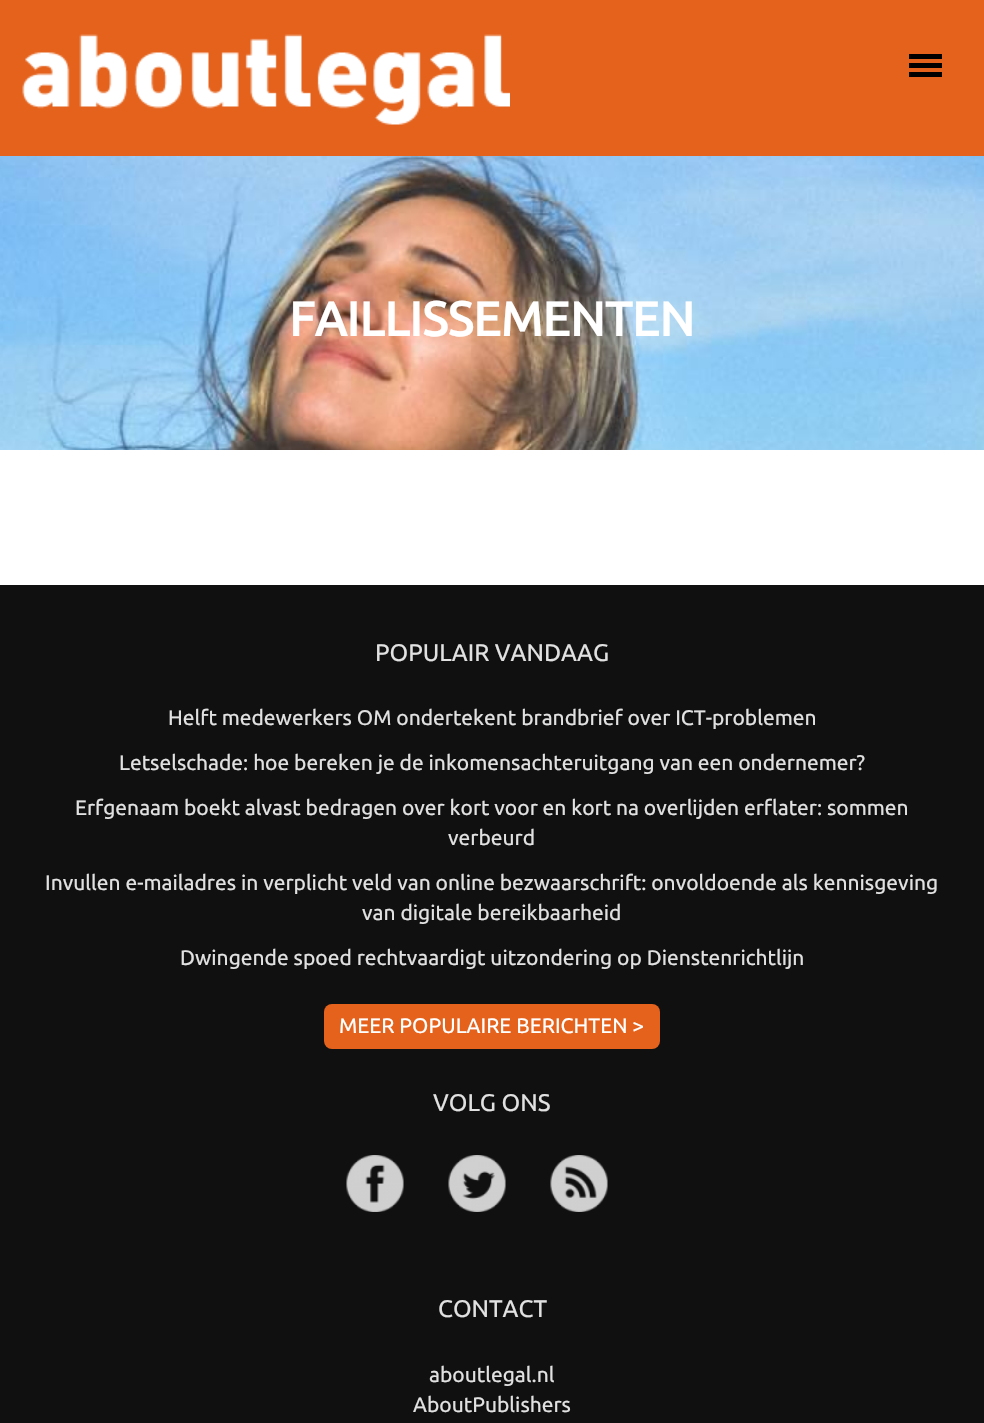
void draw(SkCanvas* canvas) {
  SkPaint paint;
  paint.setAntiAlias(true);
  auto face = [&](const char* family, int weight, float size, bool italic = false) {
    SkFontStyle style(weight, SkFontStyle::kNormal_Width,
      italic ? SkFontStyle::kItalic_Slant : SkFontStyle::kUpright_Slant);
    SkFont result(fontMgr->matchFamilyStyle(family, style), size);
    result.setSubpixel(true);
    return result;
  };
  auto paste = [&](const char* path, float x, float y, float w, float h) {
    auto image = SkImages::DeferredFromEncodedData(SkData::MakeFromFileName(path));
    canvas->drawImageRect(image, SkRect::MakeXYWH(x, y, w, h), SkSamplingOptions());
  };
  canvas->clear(0xffffffff);
  paint.setColor(0xffe4621c);
  canvas->drawRect(SkRect::MakeXYWH(0, 0, 984, 156), paint);
  paste("img/1.png", 22, 34, 488, 91);
  {
    const struct { float x, y, w, h; SkColor color; } items[] = {
      {909, 54, 33, 5, 0xff000000},
      {909, 63, 33, 5, 0xff000000},
      {909, 72, 33, 5, 0xff000000},
    };
    for (auto [x, y, w, h, color] : items) {
      paint.setColor(color);
      canvas->drawRect(SkRect::MakeXYWH(x, y, w, h), paint);
    }
  }
  paste("img/2.png", 0, 156, 984, 294);
  paint.setColor(0xff101010);
  canvas->drawRect(SkRect::MakeXYWH(0, 585, 984, 838), paint);
  paint.setColor(0xffe4621c);
  canvas->drawRoundRect(SkRect::MakeXYWH(324, 1004, 336, 45), 8, 8, paint);
  paste("img/3.png", 346, 1155, 58, 57);
  paste("img/4.png", 448, 1155, 58, 57);
  paste("img/5.png", 550, 1155, 58, 57);
  auto f0 = face("Ubuntu", 700, 48);
  paint.setColor(0xffffffff);
  canvas->drawString("FAILLISSEMENTEN", 289, 336, f0, paint);
  auto f1 = face("Ubuntu", 400, 24);
  paint.setColor(0xffe1e1e1);
  canvas->drawString("POPULAIR VANDAAG", 375, 661, f1, paint);
  auto f2 = face("Ubuntu", 400, 21);
  {
    const struct { const char* s; float x, y; } items[] = {
      {"Helft medewerkers OM ondertekent brandbrief over ICT-problemen", 168, 725},
      {"Letselschade: hoe bereken je de inkomensachteruitgang van een ondernemer?", 119, 770},
      {"Erfgenaam boekt alvast bedragen over kort voor en kort na overlijden erflater: sommen", 75, 815},
      {"verbeurd", 448, 845},
      {"Invullen e-mailadres in verplicht veld van online bezwaarschrift: onvoldoende als kennisgeving", 45, 890},
      {"van digitale bereikbaarheid", 362, 920},
      {"Dwingende spoed rechtvaardigt uitzondering op Dienstenrichtlijn", 180, 965},
    };
    for (auto [s, x, y] : items) {
      canvas->drawString(s, x, y, f2, paint);
    }
  }
  paint.setColor(0xffffffff);
  canvas->drawString("MEER POPULAIRE BERICHTEN >", 339, 1033, f2, paint);
  paint.setColor(0xffe1e1e1);
  canvas->drawString("VOLG ONS", 433, 1111, f1, paint);
  canvas->drawString("CONTACT", 438, 1317, f1, paint);
  canvas->drawString("aboutlegal.nl", 429, 1382, f2, paint);
  canvas->drawString("AboutPublishers", 413, 1412, f2, paint);
}
